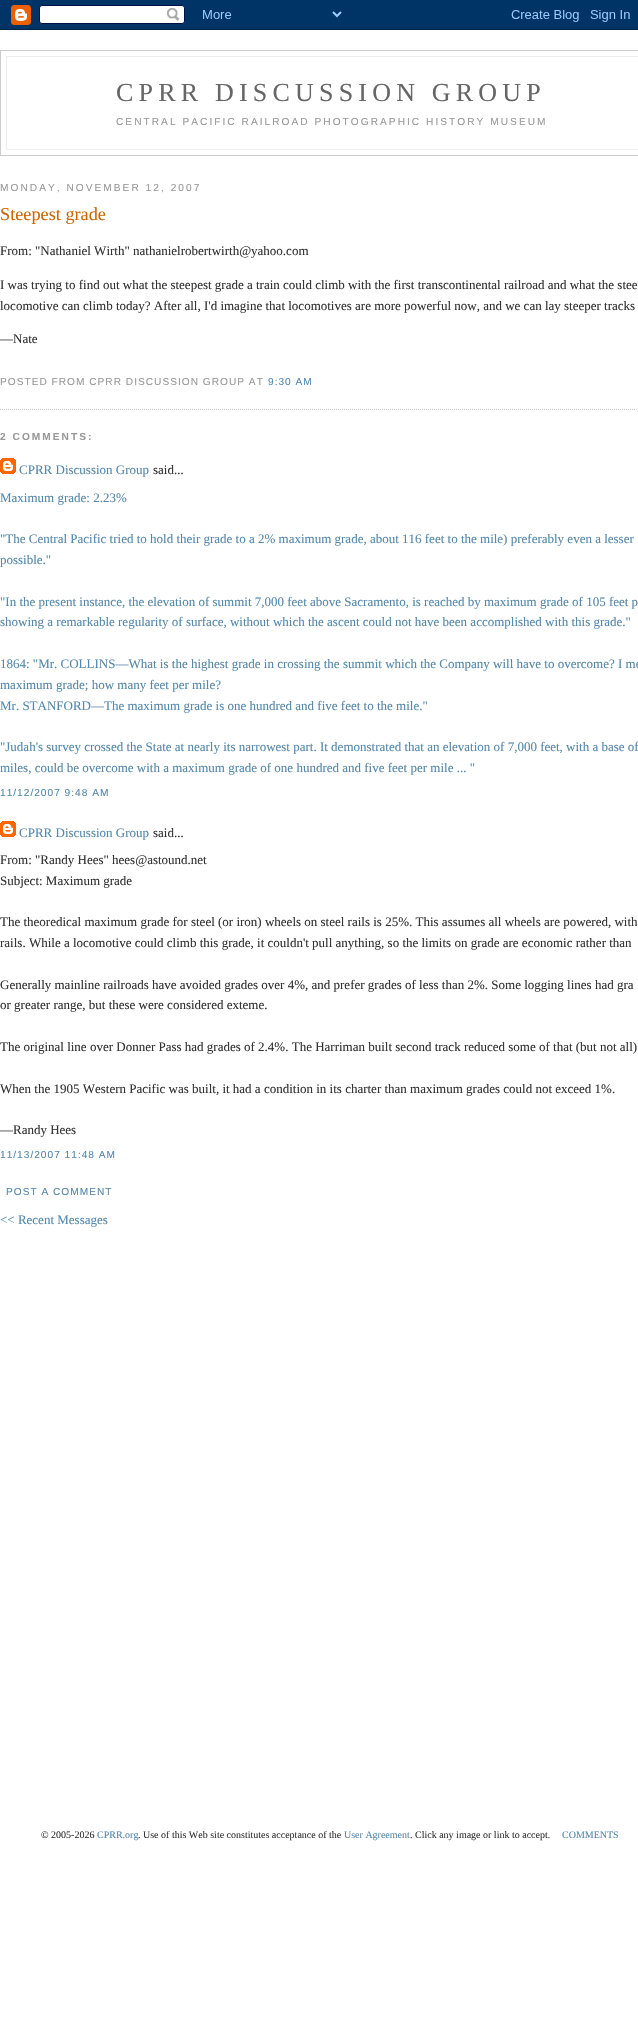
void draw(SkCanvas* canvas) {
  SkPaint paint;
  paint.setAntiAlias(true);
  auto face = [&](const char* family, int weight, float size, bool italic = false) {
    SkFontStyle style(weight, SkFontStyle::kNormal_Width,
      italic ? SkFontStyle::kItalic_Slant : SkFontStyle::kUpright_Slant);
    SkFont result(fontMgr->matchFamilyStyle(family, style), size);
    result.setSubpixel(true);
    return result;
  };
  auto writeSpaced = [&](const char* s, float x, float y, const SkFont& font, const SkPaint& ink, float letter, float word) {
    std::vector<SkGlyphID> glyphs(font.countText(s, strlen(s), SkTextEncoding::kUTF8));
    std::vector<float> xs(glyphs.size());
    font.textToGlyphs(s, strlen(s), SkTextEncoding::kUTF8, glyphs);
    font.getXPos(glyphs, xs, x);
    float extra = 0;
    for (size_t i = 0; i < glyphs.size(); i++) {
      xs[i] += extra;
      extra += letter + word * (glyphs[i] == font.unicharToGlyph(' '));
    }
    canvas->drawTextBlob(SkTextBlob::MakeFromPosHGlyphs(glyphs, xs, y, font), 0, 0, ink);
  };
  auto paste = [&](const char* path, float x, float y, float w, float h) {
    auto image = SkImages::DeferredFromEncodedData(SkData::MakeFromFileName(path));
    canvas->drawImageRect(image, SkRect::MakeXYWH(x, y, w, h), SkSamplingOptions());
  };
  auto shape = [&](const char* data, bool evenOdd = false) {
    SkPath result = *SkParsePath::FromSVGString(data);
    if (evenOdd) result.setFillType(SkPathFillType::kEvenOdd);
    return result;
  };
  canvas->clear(0xffffffff);
  paste("img/1.png", 0, 0, 638, 30);
  paint.setStroke(true);
  paint.setStrokeWidth(1);
  paint.setColor(0xffcccccc);
  canvas->drawRect(SkRect::MakeXYWH(0.5f, 50.5f, 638, 105), paint);
  paint.setStroke(false);
  {
    const struct { float x, y, w, h; SkColor color; } items[] = {
      {6, 56, 632, 1, 0xffeeeeee},
      {6, 56, 1, 59, 0xffeeeeee},
      {6, 149, 632, 1, 0xffeeeeee},
      {6, 115, 1, 35, 0xffeeeeee},
    };
    for (auto [x, y, w, h, color] : items) {
      paint.setColor(color);
      canvas->drawRect(SkRect::MakeXYWH(x, y, w, h), paint);
    }
  }
  paint.setStroke(true);
  paint.setColor(0xffcccccc);
  paint.setPathEffect(SkDashPathEffect::Make({{1, 1}}, 0));
  canvas->drawPath(shape("M0 409.5H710"), paint);
  paint.setPathEffect(nullptr);
  paste("img/2.png", 0, 458, 16, 16);
  paste("img/2.png", 0, 821, 16, 16);
  auto f0 = face("Liberation Serif", 400, 26);
  paint.setStroke(false);
  paint.setColor(0xff666666);
  writeSpaced("CPRR DISCUSSION GROUP", 116, 101, f0, paint, 5.2f, 0);
  auto f1 = face("Liberation Sans", 400, 10.15f);
  paint.setColor(0xff999999);
  writeSpaced("CENTRAL PACIFIC RAILROAD PHOTOGRAPHIC HISTORY MUSEUM", 116, 125, f1, paint, 2.03f, 0);
  writeSpaced("MONDAY, NOVEMBER 12, 2007", 0, 191, f1, paint, 2.03f, 0);
  auto f2 = face("Liberation Serif", 400, 18.25f);
  paint.setColor(0xffcc6600);
  canvas->drawString("Steepest grade", 0, 220, f2, paint);
  auto f3 = face("Liberation Serif", 400, 13);
  paint.setColor(0xff333333);
  {
    const struct { const char* s; float x, y; } items[] = {
      {"From: \"Nathaniel Wirth\" nathanielrobertwirth@yahoo.com", 0, 255},
      {"I was trying to find out what the steepest grade a train could climb with the first transcontinental railroad and what the stee", 0, 289},
      {"locomotive can climb today? After all, I'd imagine that locomotives are more powerful now, and we can lay steeper tracks", 0, 310},
      {"—Nate", 0, 343},
    };
    for (auto [s, x, y] : items) {
      canvas->drawString(s, x, y, f3, paint);
    }
  }
  paint.setColor(0xff999999);
  writeSpaced("POSTED FROM CPRR DISCUSSION GROUP AT", 0, 385, f1, paint, 1, 0);
  paint.setColor(0xff5588aa);
  writeSpaced("9:30 AM", 268, 385, f1, paint, 1, 0);
  auto f4 = face("Liberation Sans", 700, 10.15f);
  paint.setColor(0xff999999);
  writeSpaced("2 COMMENTS:", 0, 440, f4, paint, 2.03f, 0);
  paint.setColor(0xff5588aa);
  canvas->drawString("CPRR Discussion Group", 19, 474, f3, paint);
  paint.setColor(0xff333333);
  canvas->drawString("said...", 153, 474, f3, paint);
  paint.setColor(0xff5588aa);
  {
    const struct { const char* s; float x, y; } items[] = {
      {"Maximum grade: 2.23%", 0, 502},
      {"\"The Central Pacific tried to hold their grade to a 2% maximum grade, about 116 feet to the mile) preferably even a lesser", 0, 543},
      {"possible.\"", 0, 564},
      {"\"In the present instance, the elevation of summit 7,000 feet above Sacramento, is reached by maximum grade of 105 feet p", 0, 606},
      {"showing a remarkable regularity of surface, without which the ascent could not have been accomplished with this grade.\"", 0, 626},
      {"1864: \"Mr. COLLINS—What is the highest grade in crossing the summit which the Company will have to overcome? I me", 0, 668},
      {"maximum grade; how many feet per mile?", 0, 689},
      {"Mr. STANFORD—The maximum grade is one hundred and five feet to the mile.\"", 0, 710},
      {"\"Judah's survey crossed the State at nearly its narrowest part. It demonstrated that an elevation of 7,000 feet, with a base of", 0, 751},
      {"miles, could be overcome with a maximum grade of one hundred and five feet per mile ... \"", 0, 772},
    };
    for (auto [s, x, y] : items) {
      canvas->drawString(s, x, y, f3, paint);
    }
  }
  writeSpaced("11/12/2007 9:48 AM", 0, 796, f1, paint, 1, 0);
  canvas->drawString("CPRR Discussion Group", 19, 837, f3, paint);
  paint.setColor(0xff333333);
  {
    const struct { const char* s; float x, y; } items[] = {
      {"said...", 153, 837},
      {"From: \"Randy Hees\" hees@astound.net", 0, 864},
      {"Subject: Maximum grade", 0, 885},
      {"The theoredical maximum grade for steel (or iron) wheels on steel rails is 25%. This assumes all wheels are powered, with", 0, 926},
      {"rails. While a locomotive could climb this grade, it couldn't pull anything, so the limits on grade are economic rather than", 0, 947},
      {"Generally mainline railroads have avoided grades over 4%, and prefer grades of less than 2%. Some logging lines had gra", 0, 989},
      {"or greater range, but these were considered exteme.", 0, 1009},
      {"The original line over Donner Pass had grades of 2.4%. The Harriman built second track reduced some of that (but not all)", 0, 1051},
      {"When the 1905 Western Pacific was built, it had a condition in its charter than maximum grades could not exceed 1%.", 0, 1093},
      {"—Randy Hees", 0, 1134},
    };
    for (auto [s, x, y] : items) {
      canvas->drawString(s, x, y, f3, paint);
    }
  }
  paint.setColor(0xff5588aa);
  writeSpaced("11/13/2007 11:48 AM", 0, 1158, f1, paint, 1, 0);
  writeSpaced("POST A COMMENT", 6, 1195, f1, paint, 1, 0);
  canvas->drawString("<< Recent Messages", 0, 1224, f3, paint);
  auto f5 = face("Liberation Serif", 400, 10);
  paint.setColor(0xff333333);
  canvas->drawString("© 2005-2026", 41, 1838, f5, paint);
  paint.setColor(0xff5588aa);
  canvas->drawString("CPRR.org", 97, 1838, f5, paint);
  paint.setColor(0xff333333);
  canvas->drawString(". Use of this Web site constitutes acceptance of the", 138, 1838, f5, paint);
  paint.setColor(0xff5588aa);
  canvas->drawString("User Agreement", 344, 1838, f5, paint);
  paint.setColor(0xff333333);
  canvas->drawString(". Click any image or link to accept.", 410, 1838, f5, paint);
  paint.setColor(0xff5588aa);
  canvas->drawString("COMMENTS", 562, 1838, f5, paint);
}
